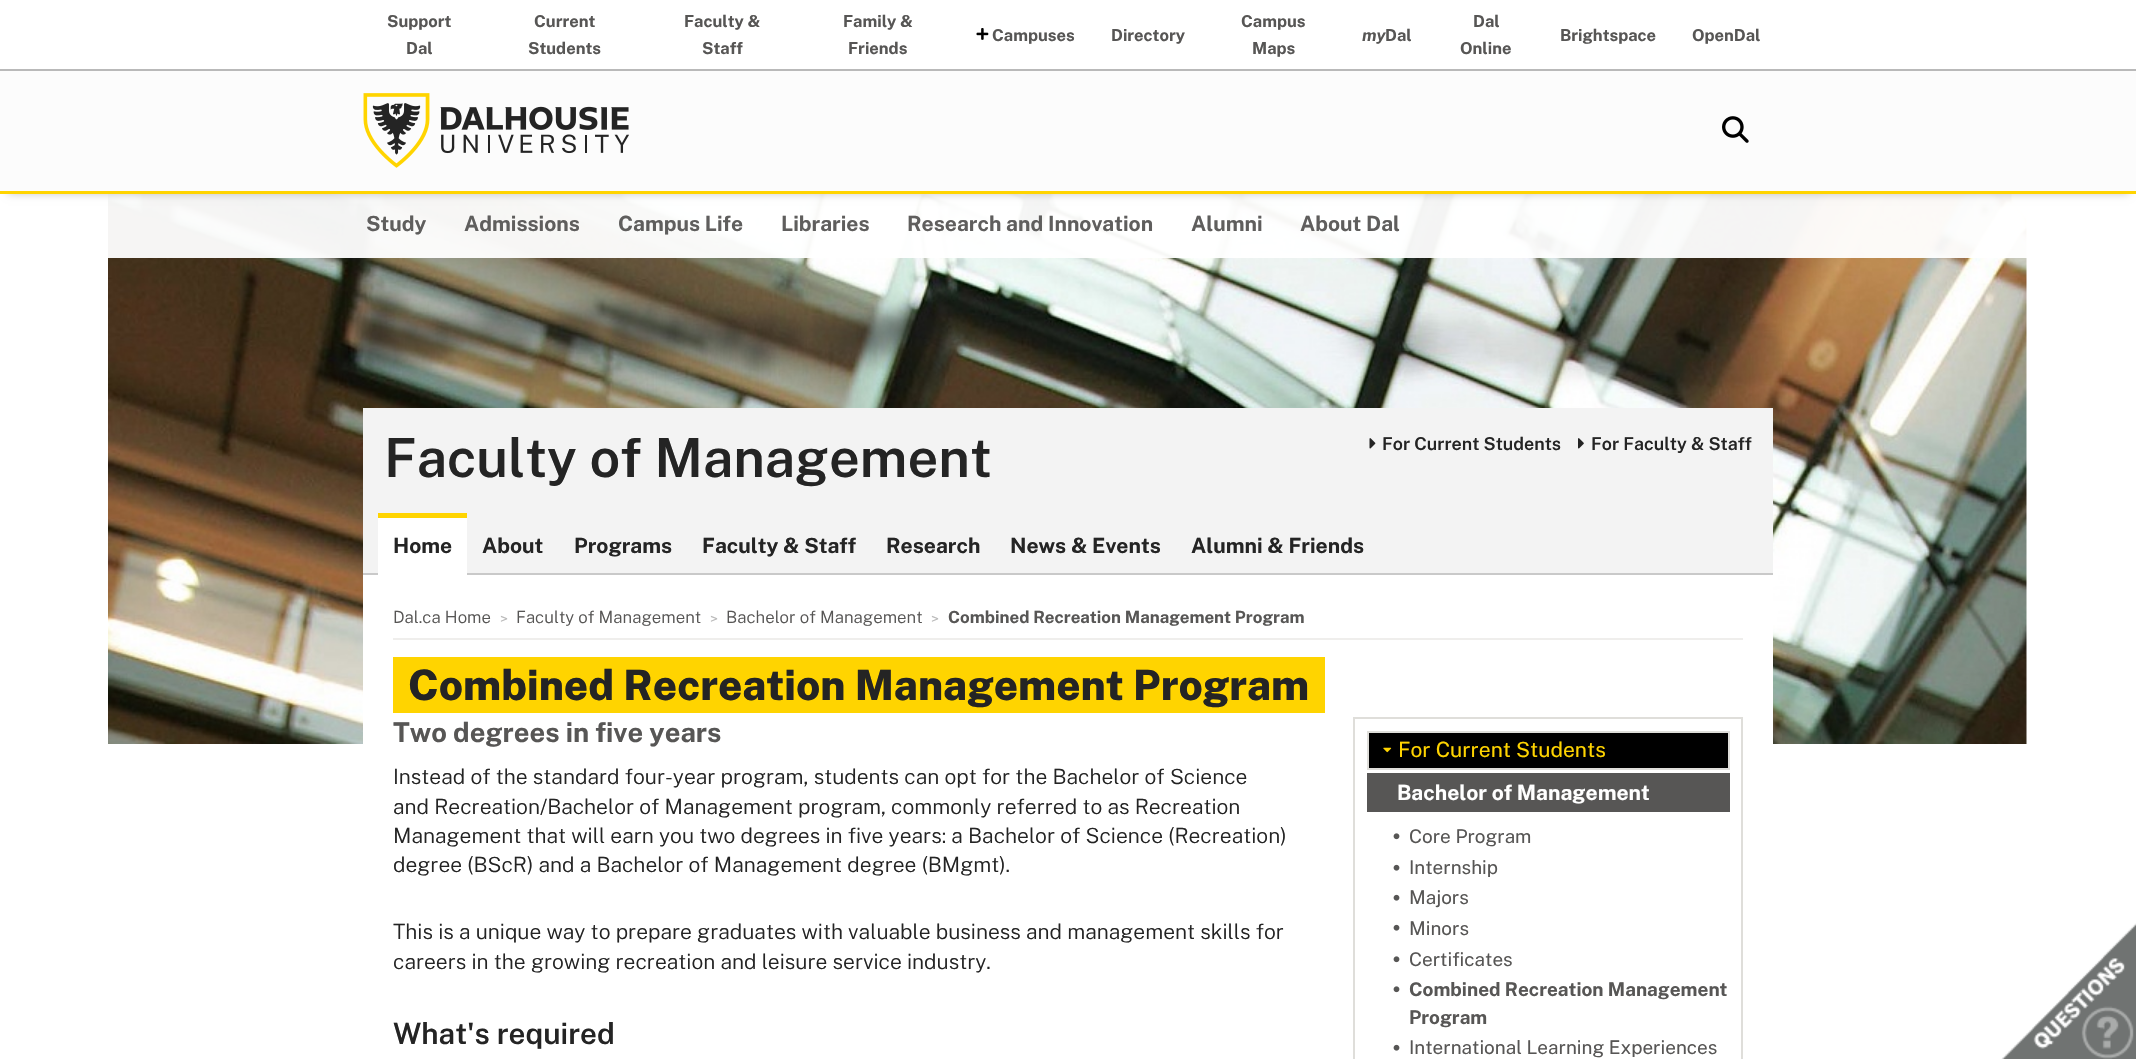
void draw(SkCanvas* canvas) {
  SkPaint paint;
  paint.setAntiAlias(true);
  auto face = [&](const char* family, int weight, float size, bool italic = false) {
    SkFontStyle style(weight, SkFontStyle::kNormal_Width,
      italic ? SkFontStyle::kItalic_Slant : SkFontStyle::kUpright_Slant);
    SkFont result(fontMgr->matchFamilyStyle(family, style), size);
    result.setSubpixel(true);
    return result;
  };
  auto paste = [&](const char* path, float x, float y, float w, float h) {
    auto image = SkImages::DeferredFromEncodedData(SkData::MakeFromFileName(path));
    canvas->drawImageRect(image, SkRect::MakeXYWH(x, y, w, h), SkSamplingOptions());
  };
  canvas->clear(0xffffffff);
  paint.setColor(0xffb9b9b9);
  canvas->drawRect(SkRect::MakeXYWH(0, 69, 2136, 2), paint);
  paste("img/1.png", 976, 28, 13, 12);
  paste("img/4.png", 108, 194, 1919, 550);
  paint.setColor(0xf2ffffff);
  canvas->drawRect(SkRect::MakeXYWH(108, 194, 1919, 64), paint);
  paint.setColor(0x33000000);
  paint.setMaskFilter(SkMaskFilter::MakeBlur(kNormal_SkBlurStyle, 4));
  canvas->drawRect(SkRect::MakeXYWH(8, 86, 2121, 108), paint);
  paint.setMaskFilter(nullptr);
  paint.setColor(0xfffcfcfc);
  canvas->drawRect(SkRect::MakeXYWH(0, 71, 2136, 120), paint);
  paint.setColor(0xffffd400);
  canvas->drawRect(SkRect::MakeXYWH(0, 191, 2136, 3), paint);
  paste("img/2.png", 363, 93, 266, 75);
  paste("img/3.png", 1722, 116, 27, 27);
  paint.setColor(0xfff3f3f3);
  canvas->drawRect(SkRect::MakeXYWH(363, 408, 1410, 165), paint);
  paint.setColor(0xffffffff);
  canvas->drawRect(SkRect::MakeXYWH(363, 575, 1397, 1), paint);
  paste("img/5.png", 1369, 438, 7, 11);
  paste("img/6.png", 1578, 438, 6, 11);
  {
    const struct { float x, y, w, h; SkColor color; } items[] = {
      {363, 573, 1410, 2, 0xffc9c9c9},
      {378, 513, 89, 5, 0xffffd400},
      {378, 518, 89, 57, 0xffffffff},
      {363, 576, 1410, 168, 0xffffffff},
      {393, 638, 1350, 2, 0xffefeeec},
      {393, 657, 932, 56, 0xffffd400},
    };
    for (auto [x, y, w, h, color] : items) {
      paint.setColor(color);
      canvas->drawRect(SkRect::MakeXYWH(x, y, w, h), paint);
    }
  }
  paint.setStroke(true);
  paint.setStrokeWidth(2);
  paint.setColor(0xffdfdeda);
  canvas->drawRect(SkRect::MakeXYWH(1354, 718, 388, 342), paint);
  paint.setStroke(false);
  paint.setColor(0xff000000);
  canvas->drawRect(SkRect::MakeXYWH(1368, 732, 361, 37), paint);
  paint.setStroke(true);
  paint.setColor(0xffdfdeda);
  canvas->drawRect(SkRect::MakeXYWH(1368, 732, 361, 37), paint);
  paste("img/7.png", 1383, 747, 9, 6);
  paint.setStroke(false);
  paint.setColor(0xff575655);
  canvas->drawRect(SkRect::MakeXYWH(1367, 773, 363, 39), paint);
  paste("img/8.png", 1393, 833, 7, 7);
  paste("img/9.png", 1393, 864, 7, 7);
  paste("img/9.png", 1393, 894, 7, 7);
  paste("img/9.png", 1393, 924, 7, 7);
  paste("img/8.png", 1393, 956, 7, 7);
  paste("img/8.png", 1393, 986, 7, 7);
  paste("img/9.png", 1393, 1044, 7, 7);
  paste("img/10.png", 2001, 923, 135, 136);
  auto f0 = face("Public Sans", 700, 16.5f);
  {
    const struct { const char* s; float x, y; } items[] = {
      {"Support", 387, 27},
      {"Dal", 406, 54},
      {"Current", 534, 27},
      {"Students", 528, 54},
      {"Faculty &", 684, 27},
      {"Staff", 702, 54},
      {"Family &", 843, 27},
      {"Friends", 848, 54},
      {"Campuses", 992, 41},
      {"Directory", 1111, 41},
      {"Campus", 1241, 27},
      {"Maps", 1252, 54},
    };
    for (auto [s, x, y] : items) {
      canvas->drawString(s, x, y, f0, paint);
    }
  }
  auto f1 = face("Public Sans", 700, 16.5f, true);
  canvas->drawString("my", 1362, 41, f1, paint);
  {
    const struct { const char* s; float x, y; } items[] = {
      {"Dal", 1385, 41},
      {"Dal", 1473, 27},
      {"Online", 1460, 54},
      {"Brightspace", 1560, 41},
      {"OpenDal", 1692, 41},
    };
    for (auto [s, x, y] : items) {
      canvas->drawString(s, x, y, f0, paint);
    }
  }
  auto f2 = face("Public Sans", 700, 21);
  paint.setColor(0xff5f5e5d);
  {
    const struct { const char* s; float x, y; } items[] = {
      {"Study", 366, 231},
      {"Admissions", 464, 231},
      {"Campus Life", 618, 231},
      {"Libraries", 781, 231},
      {"Research and Innovation", 907, 231},
      {"Alumni", 1191, 231},
      {"About Dal", 1300, 231},
    };
    for (auto [s, x, y] : items) {
      canvas->drawString(s, x, y, f2, paint);
    }
  }
  auto f3 = face("Public Sans", 600, 54);
  paint.setColor(0xff242424);
  canvas->drawString("Faculty of Management", 384, 477, f3, paint);
  auto f4 = face("Public Sans", 600, 17.8f);
  canvas->drawString("For Current Students", 1382, 450, f4, paint);
  canvas->drawString("For Faculty & Staff", 1591, 450, f4, paint);
  {
    const struct { const char* s; float x, y; } items[] = {
      {"Home", 393, 553},
      {"About", 482, 553},
      {"Programs", 574, 553},
      {"Faculty & Staff", 702, 553},
      {"Research", 886, 553},
      {"News & Events", 1010, 553},
      {"Alumni & Friends", 1191, 553},
    };
    for (auto [s, x, y] : items) {
      canvas->drawString(s, x, y, f2, paint);
    }
  }
  auto f5 = face("Public Sans", 300, 16.8f);
  paint.setColor(0xff575655);
  canvas->drawString("Dal.ca Home", 393, 623, f5, paint);
  auto f6 = face("Public Sans", 300, 15);
  paint.setColor(0xffb9b9b9);
  canvas->drawString(">", 500, 624, f6, paint);
  paint.setColor(0xff575655);
  canvas->drawString("Faculty of Management", 516, 623, f5, paint);
  paint.setColor(0xffb9b9b9);
  canvas->drawString(">", 710, 624, f6, paint);
  paint.setColor(0xff575655);
  canvas->drawString("Bachelor of Management", 726, 623, f5, paint);
  paint.setColor(0xffb9b9b9);
  canvas->drawString(">", 931, 624, f6, paint);
  auto f7 = face("Public Sans", 700, 16.8f);
  paint.setColor(0xff575655);
  canvas->drawString("Combined Recreation Management Program", 948, 623, f7, paint);
  auto f8 = face("Public Sans", 800, 42);
  paint.setColor(0xff242424);
  canvas->drawString("Combined Recreation Management Program", 408, 700, f8, paint);
  auto f9 = face("Public Sans", 700, 27.25f);
  paint.setColor(0xff575655);
  canvas->drawString("Two degrees in five years", 393, 742, f9, paint);
  auto f10 = face("Public Sans", 300, 21);
  paint.setColor(0xff242424);
  {
    const struct { const char* s; float x, y; } items[] = {
      {"Instead of the standard four-year program, students can opt for the Bachelor of Science", 393, 784},
      {"and Recreation/Bachelor of Management program, commonly referred to as Recreation", 393, 814},
      {"Management that will earn you two degrees in five years: a Bachelor of Science (Recreation)", 393, 843},
      {"degree (BScR) and a Bachelor of Management degree (BMgmt).", 393, 872},
      {"This is a unique way to prepare graduates with valuable business and management skills for", 393, 939},
      {"careers in the growing recreation and leisure service industry.", 393, 969},
    };
    for (auto [s, x, y] : items) {
      canvas->drawString(s, x, y, f10, paint);
    }
  }
  auto f11 = face("Public Sans", 600, 29.5f);
  canvas->drawString("What's required", 393, 1044, f11, paint);
  auto f12 = face("Public Sans", 400, 21);
  paint.setColor(0xffffd400);
  canvas->drawString("For Current Students", 1398, 757, f12, paint);
  paint.setColor(0xffffffff);
  canvas->drawString("Bachelor of Management", 1397, 800, f2, paint);
  auto f13 = face("Public Sans", 400, 18.9f);
  paint.setColor(0xff575655);
  {
    const struct { const char* s; float x, y; } items[] = {
      {"Core Program", 1409, 843},
      {"Internship", 1409, 874},
      {"Majors", 1409, 904},
      {"Minors", 1409, 935},
      {"Certificates", 1409, 966},
    };
    for (auto [s, x, y] : items) {
      canvas->drawString(s, x, y, f13, paint);
    }
  }
  auto f14 = face("Public Sans", 700, 18.9f);
  canvas->drawString("Combined Recreation Management", 1409, 996, f14, paint);
  canvas->drawString("Program", 1409, 1024, f14, paint);
  canvas->drawString("International Learning Experiences", 1409, 1054, f13, paint);
}
